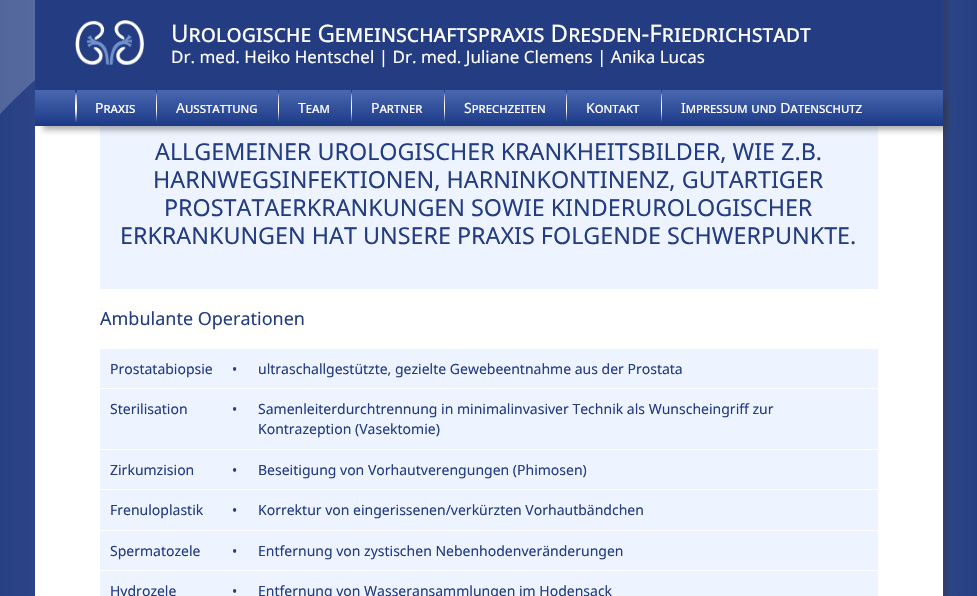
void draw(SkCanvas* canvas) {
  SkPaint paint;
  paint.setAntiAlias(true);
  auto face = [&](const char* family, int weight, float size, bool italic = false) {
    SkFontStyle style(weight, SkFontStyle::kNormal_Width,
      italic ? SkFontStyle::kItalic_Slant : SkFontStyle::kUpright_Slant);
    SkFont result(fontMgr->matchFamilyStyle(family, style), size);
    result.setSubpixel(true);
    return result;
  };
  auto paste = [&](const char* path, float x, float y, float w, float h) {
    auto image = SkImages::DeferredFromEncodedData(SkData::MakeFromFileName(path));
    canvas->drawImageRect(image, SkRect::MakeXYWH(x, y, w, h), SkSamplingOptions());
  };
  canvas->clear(0xffffffff);
  paste("img/1.png", 0, 0, 977, 596);
  paint.setColor(0x66333333);
  paint.setMaskFilter(SkMaskFilter::MakeBlur(kNormal_SkBlurStyle, 3));
  canvas->drawRect(SkRect::MakeXYWH(43, -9, 904, 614), paint);
  paint.setMaskFilter(nullptr);
  paint.setColor(0xffffffff);
  canvas->drawRect(SkRect::MakeXYWH(35, 126, 908, 470), paint);
  paint.setColor(0xff233c82);
  canvas->drawRect(SkRect::MakeXYWH(35, 0, 908, 90), paint);
  paste("img/2.png", 75, 20, 69, 45);
  paint.setColor(0xffedf3ff);
  canvas->drawRect(SkRect::MakeXYWH(100, 126, 778, 163), paint);
  paint.setColor(0x66333333);
  paint.setMaskFilter(SkMaskFilter::MakeBlur(kNormal_SkBlurStyle, 3));
  canvas->drawRect(SkRect::MakeXYWH(43, 98, 904, 32), paint);
  paint.setMaskFilter(nullptr);
  {
    const SkColor colors[] = {0xff4a67b1, 0xff1b3985};
    const float stops[] = {0, 1};
    const SkPoint ends[] = {{489, 90}, {489, 126}};
    paint.setShader(SkGradientShader::MakeLinear(ends, colors, stops, 2, SkTileMode::kClamp));
    paint.setAlpha(255);
  }
  canvas->drawRect(SkRect::MakeXYWH(35, 90, 908, 36), paint);
  paste("img/3.png", 75, 90, 2, 32);
  paste("img/4.png", 156, 90, 1, 32);
  paste("img/4.png", 278, 90, 1, 32);
  paste("img/4.png", 351, 90, 1, 32);
  paste("img/4.png", 444, 90, 1, 32);
  paste("img/4.png", 566, 90, 1, 32);
  paste("img/4.png", 661, 90, 1, 32);
  paint.setShader(nullptr);
  {
    const struct { float x, y, w, h; SkColor color; } items[] = {
      {100, 349, 778, 39, 0xffedf3ff},
      {100, 389, 778, 60, 0xffedf3ff},
      {100, 450, 778, 39, 0xffedf3ff},
      {100, 490, 778, 40, 0xffedf3ff},
      {100, 531, 778, 39, 0xffedf3ff},
      {100, 571, 778, 25, 0xffedf3ff},
    };
    for (auto [x, y, w, h, color] : items) {
      paint.setColor(color);
      canvas->drawRect(SkRect::MakeXYWH(x, y, w, h), paint);
    }
  }
  auto f0 = face("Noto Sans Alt", 400, 24);
  paint.setColor(0xffffffff);
  canvas->drawString("Urologische Gemeinschaftspraxis Dresden-Friedrichstadt", 171, 42, f0, paint);
  auto f1 = face("Noto Sans", 400, 17);
  canvas->drawString("Dr. med. Heiko Hentschel | Dr. med. Juliane Clemens | Anika Lucas", 171, 63, f1, paint);
  auto f2 = face("Noto Sans Alt", 400, 14);
  {
    const struct { const char* s; float x, y; } items[] = {
      {"Praxis", 95, 113},
      {"Ausstattung", 176, 113},
      {"Team", 298, 113},
      {"Partner", 371, 113},
      {"Sprechzeiten", 464, 113},
      {"Kontakt", 586, 113},
      {"Impressum und Datenschutz", 681, 113},
    };
    for (auto [s, x, y] : items) {
      canvas->drawString(s, x, y, f2, paint);
    }
  }
  auto f3 = face("Noto Sans", 400, 23.3f);
  paint.setColor(0xff233c82);
  {
    const struct { const char* s; float x, y; } items[] = {
      {"ALLGEMEINER UROLOGISCHER KRANKHEITSBILDER, WIE Z.B.", 155, 160},
      {"HARNWEGSINFEKTIONEN, HARNINKONTINENZ, GUTARTIGER", 153, 188},
      {"PROSTATAERKRANKUNGEN SOWIE KINDERUROLOGISCHER", 164, 216},
      {"ERKRANKUNGEN HAT UNSERE PRAXIS FOLGENDE SCHWERPUNKTE.", 120, 244},
    };
    for (auto [s, x, y] : items) {
      canvas->drawString(s, x, y, f3, paint);
    }
  }
  auto f4 = face("Noto Sans", 400, 18);
  canvas->drawString("Ambulante Operationen", 100, 325, f4, paint);
  auto f5 = face("Noto Sans", 400, 14);
  {
    const struct { const char* s; float x, y; } items[] = {
      {"Prostatabiopsie", 110, 374},
      {"•", 232, 374},
      {"ultraschallgestützte, gezielte Gewebeentnahme aus der Prostata", 258, 374},
      {"Sterilisation", 110, 414},
      {"•", 232, 414},
      {"Samenleiterdurchtrennung in minimalinvasiver Technik als Wunscheingriff zur", 258, 414},
      {"Kontrazeption (Vasektomie)", 258, 434},
      {"Zirkumzision", 110, 475},
      {"•", 232, 475},
      {"Beseitigung von Vorhautverengungen (Phimosen)", 258, 475},
      {"Frenuloplastik", 110, 515},
      {"•", 232, 515},
      {"Korrektur von eingerissenen/verkürzten Vorhautbändchen", 258, 515},
      {"Spermatozele", 110, 556},
      {"•", 232, 556},
      {"Entfernung von zystischen Nebenhodenveränderungen", 258, 556},
      {"Hydrozele", 110, 596},
      {"•", 232, 596},
      {"Entfernung von Wasseransammlungen im Hodensack", 258, 596},
    };
    for (auto [s, x, y] : items) {
      canvas->drawString(s, x, y, f5, paint);
    }
  }
}
